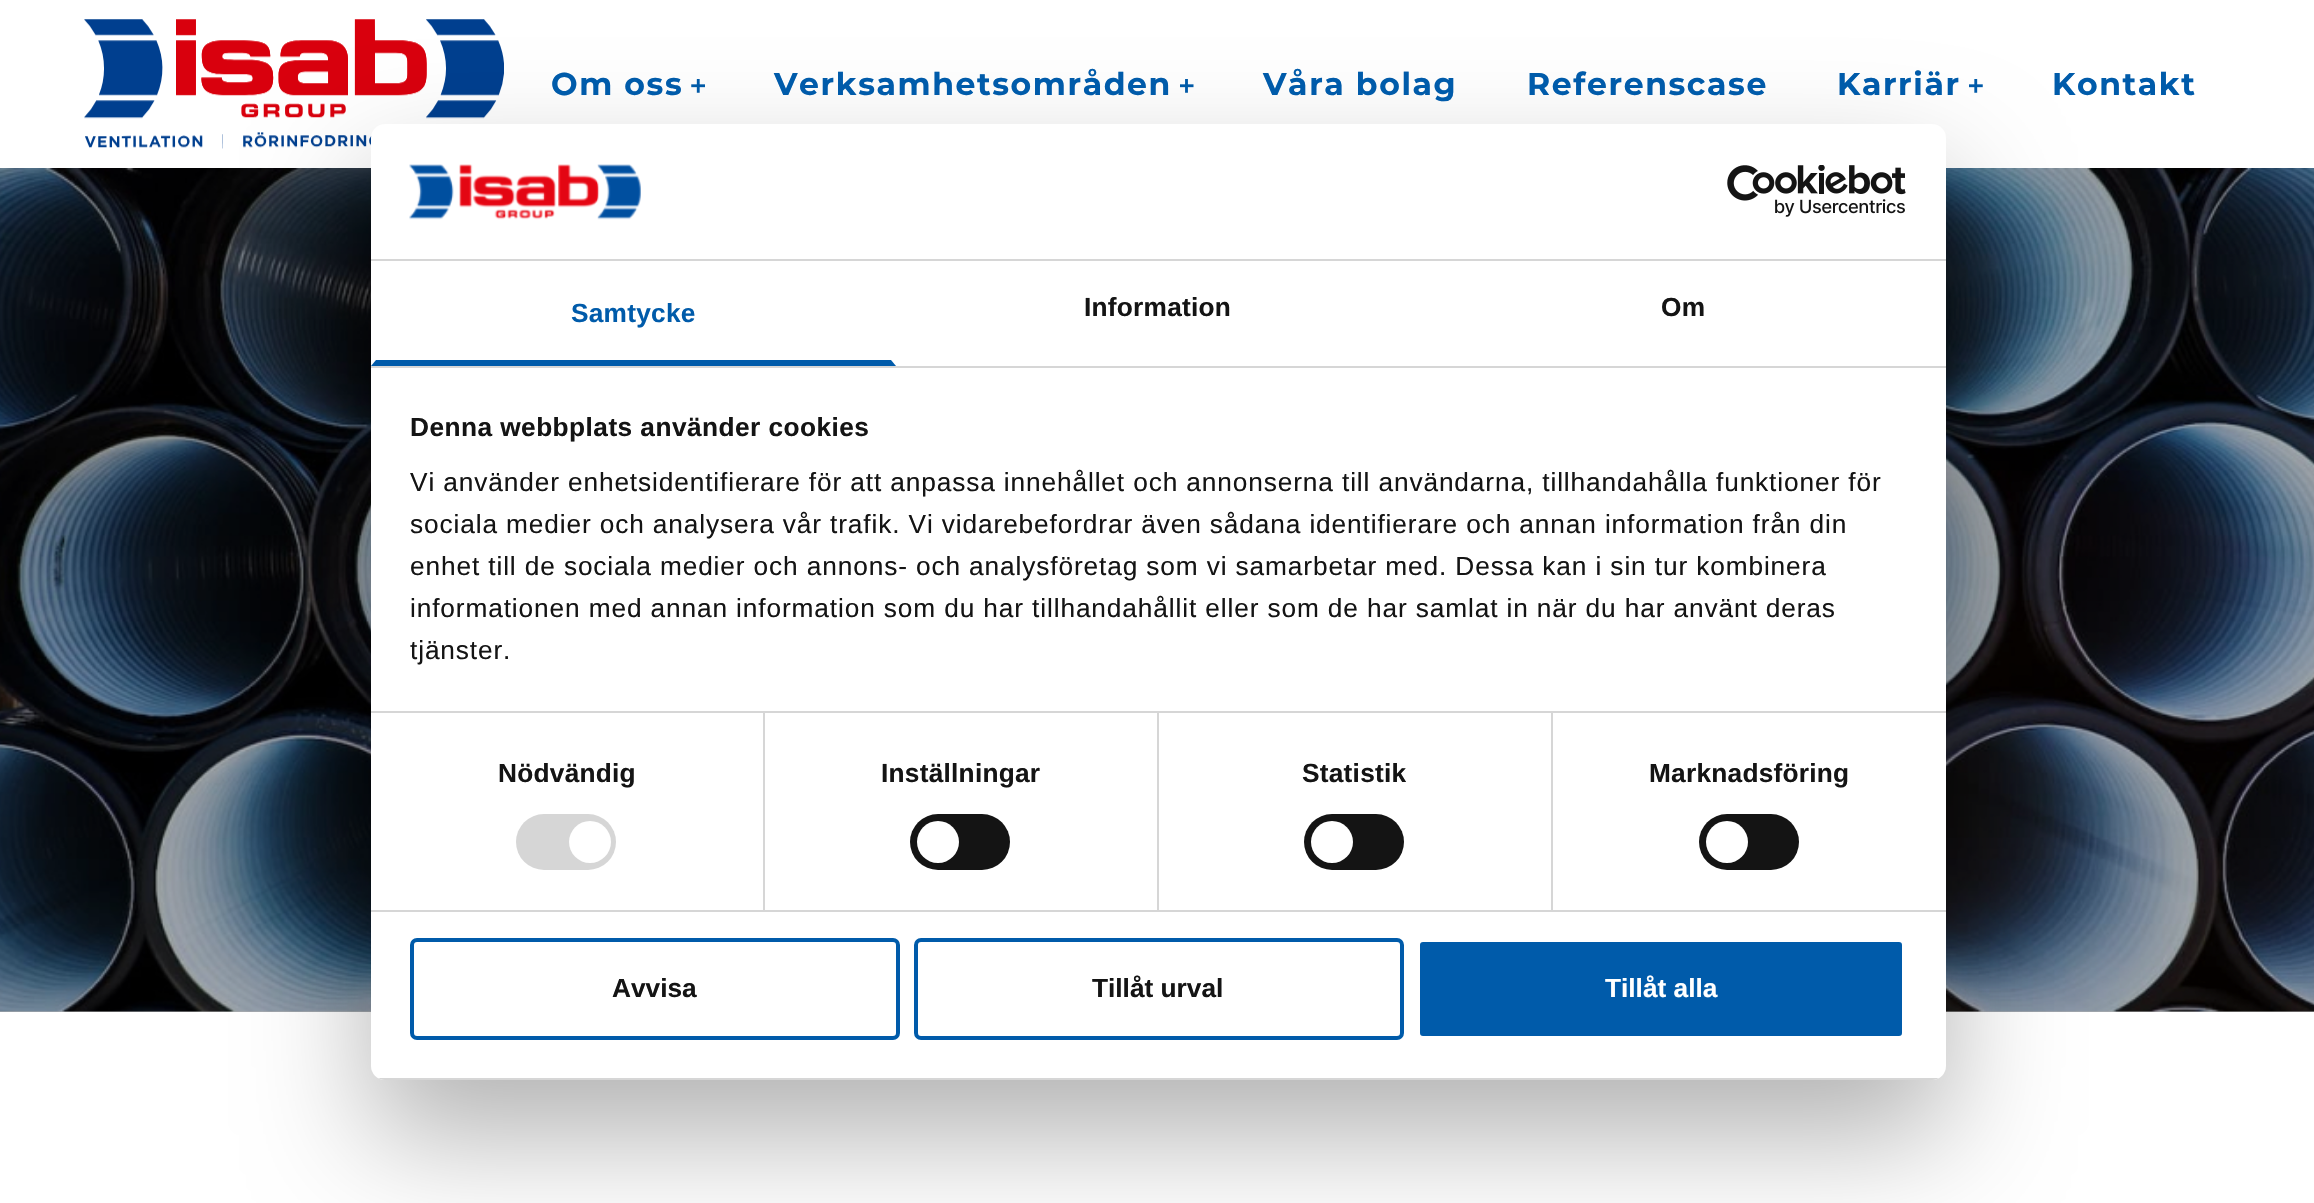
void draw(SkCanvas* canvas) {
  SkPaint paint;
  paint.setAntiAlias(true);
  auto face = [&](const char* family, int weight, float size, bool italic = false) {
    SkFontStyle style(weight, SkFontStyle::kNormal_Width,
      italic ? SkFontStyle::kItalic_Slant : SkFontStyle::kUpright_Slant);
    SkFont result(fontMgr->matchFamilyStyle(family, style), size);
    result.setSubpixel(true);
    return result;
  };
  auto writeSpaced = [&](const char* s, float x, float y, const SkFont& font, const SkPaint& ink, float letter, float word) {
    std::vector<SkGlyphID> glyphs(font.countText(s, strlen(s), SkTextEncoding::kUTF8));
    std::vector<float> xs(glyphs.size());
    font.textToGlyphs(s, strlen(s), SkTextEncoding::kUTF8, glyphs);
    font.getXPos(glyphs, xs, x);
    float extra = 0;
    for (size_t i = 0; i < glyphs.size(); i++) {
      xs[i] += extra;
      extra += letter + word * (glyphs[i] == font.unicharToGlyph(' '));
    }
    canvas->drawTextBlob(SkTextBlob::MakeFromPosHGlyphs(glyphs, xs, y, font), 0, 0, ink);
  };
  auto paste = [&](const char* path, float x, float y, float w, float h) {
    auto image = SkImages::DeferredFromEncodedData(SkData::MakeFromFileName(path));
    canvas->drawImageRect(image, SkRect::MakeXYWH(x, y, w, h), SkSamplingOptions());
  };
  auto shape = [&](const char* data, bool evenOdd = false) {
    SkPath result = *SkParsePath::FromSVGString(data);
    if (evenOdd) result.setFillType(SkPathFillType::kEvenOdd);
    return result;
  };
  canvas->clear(0xffffffff);
  paint.setColor(0xffb3b3b3);
  canvas->drawRect(SkRect::MakeXYWH(0, 1011, 2314, 1), paint);
  paste("img/1.png", 84, 19, 420, 130);
  paste("img/2.png", 691, 79, 14, 14);
  paste("img/3.png", 1180, 79, 14, 14);
  paste("img/4.png", 1969, 79, 14, 14);
  paste("img/5.png", 0, 168, 2314, 844);
  paint.setColor(0x4d000000);
  paint.setMaskFilter(SkMaskFilter::MakeBlur(kNormal_SkBlurStyle, 59.5f));
  canvas->drawRoundRect(SkRect::MakeXYWH(371, 180, 1575, 956), 14, 14, paint);
  paint.setMaskFilter(nullptr);
  paint.setColor(0xffffffff);
  canvas->drawRoundRect(SkRect::MakeXYWH(371, 124, 1575, 956), 14, 14, paint);
  paint.setColor(0xffd6d6d6);
  canvas->drawRect(SkRect::MakeXYWH(371, 259, 1575, 2), paint);
  paste("img/6.png", 409, 164, 232, 56);
  paste("img/7.png", 1727, 165, 179, 52);
  canvas->drawRect(SkRect::MakeXYWH(371, 366, 1575, 2), paint);
  paint.setColor(0xff005baa);
  canvas->drawPath(shape("M896 366H371L376 360H891Z"), paint);
  {
    const struct { float x, y, w, h; SkColor color; } items[] = {
      {763, 712, 2, 198, 0xffd6d6d6},
      {1157, 712, 2, 198, 0xffd6d6d6},
      {1551, 712, 2, 198, 0xffd6d6d6},
      {371, 711, 1575, 2, 0xffd6d6d6},
      {371, 910, 1575, 2, 0xffd6d6d6},
    };
    for (auto [x, y, w, h, color] : items) {
      paint.setColor(color);
      canvas->drawRect(SkRect::MakeXYWH(x, y, w, h), paint);
    }
  }
  canvas->drawRoundRect(SkRect::MakeXYWH(516, 814, 100, 56), 28, 28, paint);
  paint.setColor(0xffffffff);
  canvas->drawCircle(590, 842, 21, paint);
  paint.setColor(0xff141414);
  canvas->drawRoundRect(SkRect::MakeXYWH(910, 814, 100, 56), 28, 28, paint);
  paint.setColor(0xffffffff);
  canvas->drawCircle(938, 842, 21, paint);
  paint.setColor(0xff141414);
  canvas->drawRoundRect(SkRect::MakeXYWH(1304, 814, 100, 56), 28, 28, paint);
  paint.setColor(0xffffffff);
  canvas->drawCircle(1332, 842, 21, paint);
  paint.setColor(0xff141414);
  canvas->drawRoundRect(SkRect::MakeXYWH(1699, 814, 100, 56), 28, 28, paint);
  paint.setColor(0xffffffff);
  canvas->drawCircle(1727, 842, 21, paint);
  canvas->save();
  canvas->clipPath(shape("M385 124H1932C1939.5 124 1946 130.5 1946 138V1066C1946 1073.5 1939.5 1080 1932 1080H385C377.5 1080 371 1073.5 371 1066V138C371 130.5 377.5 124 385 124Z"), true);
  paint.setColor(0xffd6d6d6);
  canvas->drawRect(SkRect::MakeXYWH(371, 1078, 1575, 2), paint);
  canvas->restore();
  paint.setStroke(true);
  paint.setStrokeWidth(4);
  paint.setColor(0xff005baa);
  canvas->drawRoundRect(SkRect::MakeXYWH(412, 940, 486, 98), 5, 5, paint);
  canvas->drawRoundRect(SkRect::MakeXYWH(916, 940, 486, 98), 5, 5, paint);
  paint.setStroke(false);
  canvas->drawRoundRect(SkRect::MakeXYWH(1418, 940, 486, 98), 5, 5, paint);
  paint.setStroke(true);
  paint.setColor(0xffffffff);
  canvas->drawRoundRect(SkRect::MakeXYWH(1418, 940, 486, 98), 5, 5, paint);
  auto f0 = face("Montserrat", 700, 31.5f);
  paint.setStroke(false);
  paint.setColor(0xff005baa);
  {
    const struct { const char* s; float x, y; } items[] = {
      {"Om oss", 551, 95},
      {"Verksamhetsområden", 774, 95},
      {"Våra bolag", 1263, 95},
      {"Referenscase", 1527, 95},
      {"Karriär", 1837, 95},
      {"Kontakt", 2052, 95},
    };
    for (auto [s, x, y] : items) {
      writeSpaced(s, x, y, f0, paint, 1.6f, 0);
    }
  }
  auto f1 = face("Liberation Sans", 700, 26.25f);
  writeSpaced("Samtycke", 571, 322, f1, paint, 0.25f, 0);
  paint.setColor(0xff141414);
  writeSpaced("Information", 1084, 316, f1, paint, 0.25f, 0);
  writeSpaced("Om", 1661, 316, f1, paint, 0.25f, 0);
  writeSpaced("Denna webbplats använder cookies", 410, 436, f1, paint, 0.45f, 0);
  auto f2 = face("Liberation Sans", 400, 26.25f);
  {
    const struct { const char* s; float x, y; } items[] = {
      {"Vi använder enhetsidentifierare för att anpassa innehållet och annonserna till användarna, tillhandahålla funktioner för", 410, 491},
      {"sociala medier och analysera vår trafik. Vi vidarebefordrar även sådana identifierare och annan information från din", 410, 533},
      {"enhet till de sociala medier och annons- och analysföretag som vi samarbetar med. Dessa kan i sin tur kombinera", 410, 575},
      {"informationen med annan information som du har tillhandahållit eller som de har samlat in när du har använt deras", 410, 617},
      {"tjänster.", 410, 659},
    };
    for (auto [s, x, y] : items) {
      writeSpaced(s, x, y, f2, paint, 0.88f, 0);
    }
  }
  {
    const struct { const char* s; float x, y; } items[] = {
      {"Nödvändig", 498, 782},
      {"Inställningar", 881, 782},
      {"Statistik", 1302, 782},
      {"Marknadsföring", 1649, 782},
    };
    for (auto [s, x, y] : items) {
      writeSpaced(s, x, y, f1, paint, 0.25f, 0);
    }
  }
  canvas->drawString("Avvisa", 612, 997, f1, paint);
  canvas->drawString("Tillåt urval", 1092, 997, f1, paint);
  paint.setColor(0xffffffff);
  canvas->drawString("Tillåt alla", 1605, 997, f1, paint);
}
